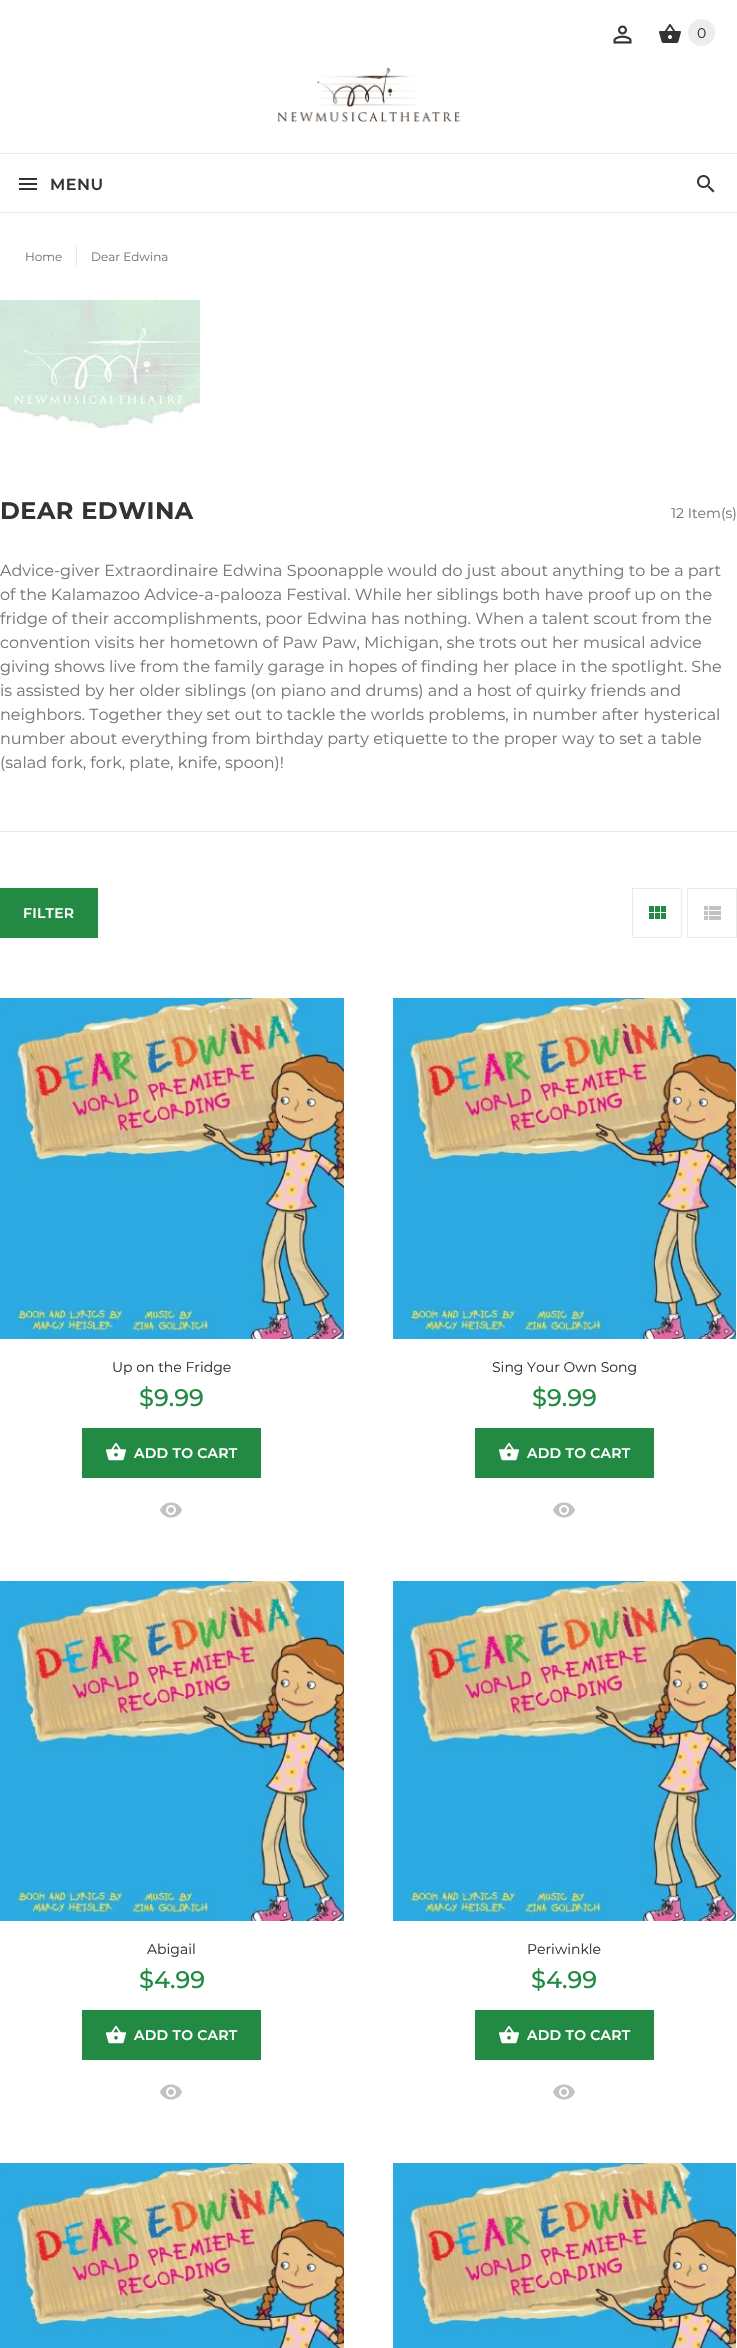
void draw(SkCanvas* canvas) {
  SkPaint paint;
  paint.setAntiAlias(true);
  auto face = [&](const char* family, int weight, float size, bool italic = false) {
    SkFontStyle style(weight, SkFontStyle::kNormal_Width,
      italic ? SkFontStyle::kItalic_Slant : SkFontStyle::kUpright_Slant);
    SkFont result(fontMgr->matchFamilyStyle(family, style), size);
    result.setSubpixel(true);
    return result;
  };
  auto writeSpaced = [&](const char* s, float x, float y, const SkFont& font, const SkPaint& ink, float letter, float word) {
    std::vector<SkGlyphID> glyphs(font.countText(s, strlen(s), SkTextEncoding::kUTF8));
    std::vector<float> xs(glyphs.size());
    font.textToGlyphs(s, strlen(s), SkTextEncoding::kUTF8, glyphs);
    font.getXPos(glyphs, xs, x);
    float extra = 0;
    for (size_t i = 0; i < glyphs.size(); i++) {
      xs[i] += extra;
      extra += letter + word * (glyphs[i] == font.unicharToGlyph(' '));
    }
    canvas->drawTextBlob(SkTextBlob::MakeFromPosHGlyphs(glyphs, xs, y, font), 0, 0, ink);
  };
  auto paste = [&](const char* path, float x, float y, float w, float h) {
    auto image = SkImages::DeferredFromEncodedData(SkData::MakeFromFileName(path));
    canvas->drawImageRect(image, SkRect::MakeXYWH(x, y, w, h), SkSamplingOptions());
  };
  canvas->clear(0xffffffff);
  paste("img/1.png", 613, 25, 19, 19);
  paste("img/2.png", 659, 24, 22, 19);
  paint.setColor(0xffededed);
  canvas->drawCircle(701.5f, 32.5f, 13.5f, paint);
  paste("img/3.png", 277, 67, 184, 56);
  {
    const struct { float x, y, w, h; SkColor color; } items[] = {
      {0, 153, 737, 1, 0xffe9e9e9},
      {0, 212, 737, 1, 0xffe9e9e9},
      {19, 178, 18, 2, 0xff333333},
      {19, 183, 18, 2, 0xff333333},
      {19, 188, 18, 2, 0xff333333},
    };
    for (auto [x, y, w, h, color] : items) {
      paint.setColor(color);
      canvas->drawRect(SkRect::MakeXYWH(x, y, w, h), paint);
    }
  }
  paste("img/4.png", 697, 175, 18, 18);
  paint.setColor(0xffe9e9e9);
  canvas->drawRect(SkRect::MakeXYWH(76, 246, 1, 21), paint);
  paste("img/5.png", 0, 300, 200, 129);
  canvas->drawRect(SkRect::MakeXYWH(0, 831, 737, 1), paint);
  paint.setColor(0xff228a43);
  canvas->drawRect(SkRect::MakeXYWH(0, 888, 98, 50), paint);
  paint.setStroke(true);
  paint.setStrokeWidth(1);
  paint.setColor(0xffe9e9e9);
  canvas->drawRect(SkRect::MakeXYWH(632.5f, 888.5f, 49, 49), paint);
  paste("img/6.png", 649, 906, 17, 13);
  canvas->drawRect(SkRect::MakeXYWH(687.5f, 888.5f, 49, 49), paint);
  paste("img/7.png", 704, 906, 17, 14);
  paste("img/8.png", 0, 998, 344, 341);
  paint.setStroke(false);
  paint.setColor(0xff228a43);
  canvas->drawRect(SkRect::MakeXYWH(82, 1428, 179, 50), paint);
  paste("img/9.png", 105, 1442, 22, 19);
  paste("img/10.png", 160, 1502, 22, 16);
  paste("img/11.png", 393, 998, 343, 341);
  canvas->drawRect(SkRect::MakeXYWH(475, 1428, 179, 50), paint);
  paste("img/9.png", 498, 1442, 22, 19);
  paste("img/10.png", 553, 1502, 22, 16);
  paste("img/12.png", 0, 1581, 344, 340);
  canvas->drawRect(SkRect::MakeXYWH(82, 2010, 179, 50), paint);
  paste("img/9.png", 105, 2025, 22, 19);
  paste("img/10.png", 160, 2084, 22, 16);
  paste("img/13.png", 393, 1581, 343, 340);
  canvas->drawRect(SkRect::MakeXYWH(475, 2010, 179, 50), paint);
  paste("img/9.png", 498, 2025, 22, 19);
  paste("img/10.png", 553, 2084, 22, 16);
  paste("img/14.png", 0, 2163, 344, 185);
  paste("img/15.png", 393, 2163, 343, 185);
  auto f0 = face("Montserrat", 400, 14);
  paint.setColor(0xff333333);
  canvas->drawString("0", 697, 38, f0, paint);
  auto f1 = face("Montserrat", 600, 16);
  writeSpaced("MENU", 50, 190, f1, paint, 0.5f, 0);
  auto f2 = face("Montserrat", 400, 12);
  paint.setColor(0xff777777);
  canvas->drawString("Home", 25, 261, f2, paint);
  canvas->drawString("Dear Edwina", 91, 261, f2, paint);
  auto f3 = face("Montserrat", 700, 24);
  paint.setColor(0xff333333);
  writeSpaced("DEAR EDWINA", 0, 519, f3, paint, 0.5f, 0);
  paint.setColor(0xff777777);
  canvas->drawString("12 Item(s)", 671, 518, f0, paint);
  auto f4 = face("Montserrat", 400, 16);
  {
    const struct { const char* s; float x, y; } items[] = {
      {"Advice-giver Extraordinaire Edwina Spoonapple would do just about anything to be a part", 0, 576},
      {"of the Kalamazoo Advice-a-palooza Festival. While her siblings both have proof up on the", 0, 600},
      {"fridge of their accomplishments, poor Edwina has nothing. When a talent scout from the", 0, 624},
      {"convention visits her hometown of Paw Paw, Michigan, she trots out her musical advice", 0, 648},
      {"giving shows live from the family garage in hopes of finding her place in the spotlight. She", 0, 672},
      {"is assisted by her older siblings (on piano and drums) and a host of quirky friends and", 0, 696},
      {"neighbors. Together they set out to tackle the worlds problems, in number after hysterical", 0, 720},
      {"number about everything from birthday party etiquette to the proper way to set a table", 0, 744},
      {"(salad fork, fork, plate, knife, spoon)!", 0, 768},
    };
    for (auto [s, x, y] : items) {
      canvas->drawString(s, x, y, f4, paint);
    }
  }
  auto f5 = face("Montserrat", 600, 14);
  paint.setColor(0xffffffff);
  writeSpaced("FILTER", 23, 918, f5, paint, 0.25f, 0);
  paint.setColor(0xff333333);
  canvas->drawString("Up on the Fridge", 112, 1372, f0, paint);
  auto f6 = face("Montserrat", 500, 24);
  paint.setColor(0xff228a43);
  canvas->drawString("$9.99", 139, 1406, f6, paint);
  paint.setColor(0xffffffff);
  writeSpaced("ADD TO CART", 134, 1458, f5, paint, 0.25f, 0);
  paint.setColor(0xff333333);
  canvas->drawString("Sing Your Own Song", 492, 1372, f0, paint);
  paint.setColor(0xff228a43);
  canvas->drawString("$9.99", 532, 1406, f6, paint);
  paint.setColor(0xffffffff);
  writeSpaced("ADD TO CART", 527, 1458, f5, paint, 0.25f, 0);
  paint.setColor(0xff333333);
  canvas->drawString("Abigail", 147, 1954, f0, paint);
  paint.setColor(0xff228a43);
  canvas->drawString("$4.99", 139, 1988, f6, paint);
  paint.setColor(0xffffffff);
  writeSpaced("ADD TO CART", 134, 2040, f5, paint, 0.25f, 0);
  paint.setColor(0xff333333);
  canvas->drawString("Periwinkle", 527, 1954, f0, paint);
  paint.setColor(0xff228a43);
  canvas->drawString("$4.99", 531, 1988, f6, paint);
  paint.setColor(0xffffffff);
  writeSpaced("ADD TO CART", 527, 2040, f5, paint, 0.25f, 0);
}
